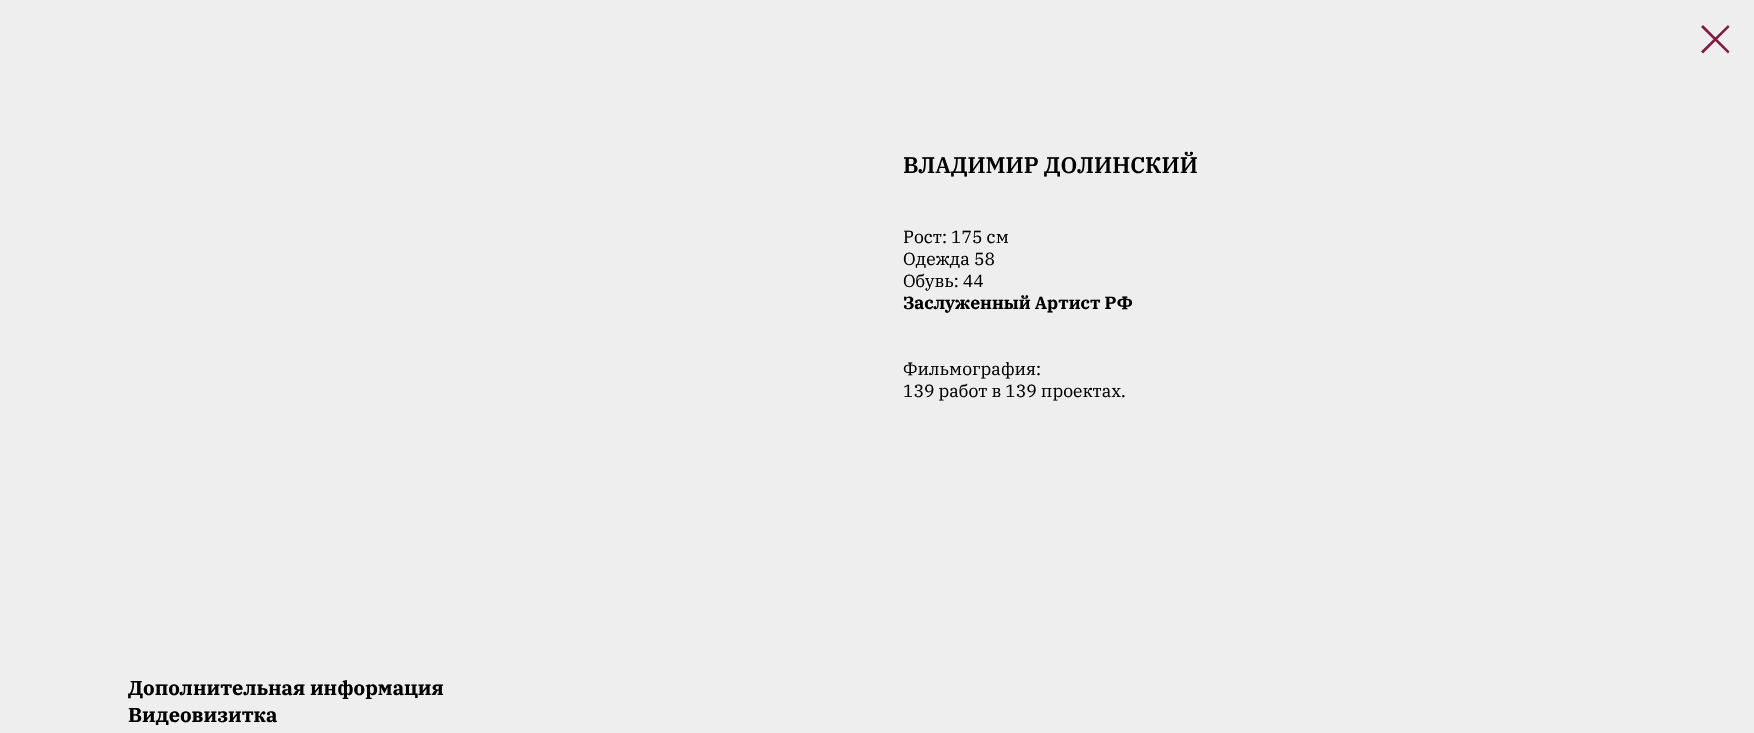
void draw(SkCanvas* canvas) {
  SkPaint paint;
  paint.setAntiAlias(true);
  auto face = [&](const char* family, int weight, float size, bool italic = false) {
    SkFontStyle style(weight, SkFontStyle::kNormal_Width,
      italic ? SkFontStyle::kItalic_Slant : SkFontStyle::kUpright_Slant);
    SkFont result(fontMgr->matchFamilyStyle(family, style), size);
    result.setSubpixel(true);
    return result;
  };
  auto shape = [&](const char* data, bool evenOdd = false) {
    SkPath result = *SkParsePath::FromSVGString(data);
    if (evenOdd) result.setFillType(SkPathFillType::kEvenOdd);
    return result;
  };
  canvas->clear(0xffeeeeee);
  paint.setColor(0xff7f1a42);
  canvas->drawPath(shape("M1701 27L1703 25L1729.5 51.5L1728 53.5Z", true), paint);
  canvas->drawPath(shape("M1728 25L1729.5 27L1703 53.5L1701 51.5Z", true), paint);
  auto f0 = face("IBM Plex Serif", 600, 22.5f);
  paint.setColor(0xff000000);
  canvas->drawString("ВЛАДИМИР ДОЛИНСКИЙ", 903, 173, f0, paint);
  auto f1 = face("IBM Plex Serif", 400, 17.5f);
  {
    const struct { const char* s; float x, y; } items[] = {
      {"Рост: 175 см", 903, 243},
      {"Одежда 58", 903, 265},
      {"Обувь: 44", 903, 287},
    };
    for (auto [s, x, y] : items) {
      canvas->drawString(s, x, y, f1, paint);
    }
  }
  auto f2 = face("IBM Plex Serif", 700, 17.5f);
  canvas->drawString("Заслуженный Артист РФ", 903, 309, f2, paint);
  canvas->drawString("Фильмография:", 903, 375, f1, paint);
  canvas->drawString("139 работ в 139 проектах.", 903, 397, f1, paint);
  auto f3 = face("IBM Plex Serif", 700, 20);
  canvas->drawString("Дополнительная информация", 128, 695, f3, paint);
  canvas->drawString("Видеовизитка", 128, 722, f3, paint);
}
